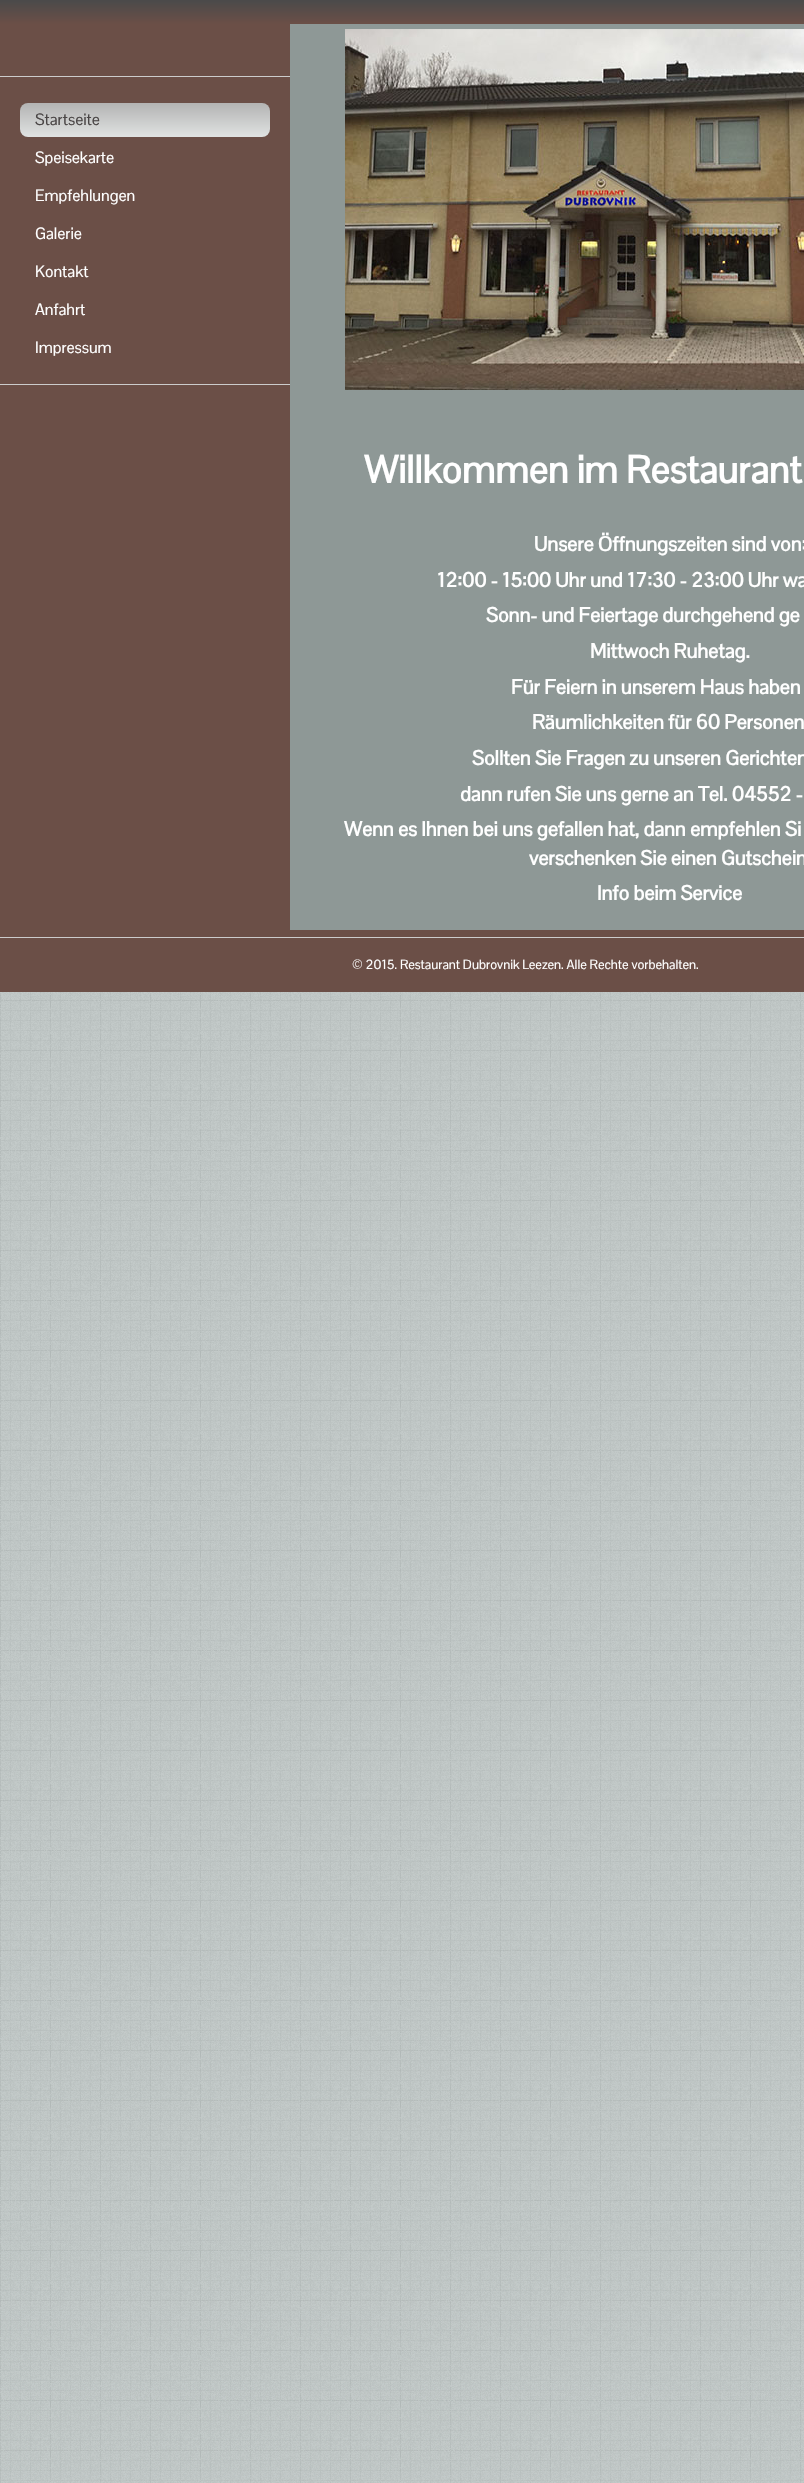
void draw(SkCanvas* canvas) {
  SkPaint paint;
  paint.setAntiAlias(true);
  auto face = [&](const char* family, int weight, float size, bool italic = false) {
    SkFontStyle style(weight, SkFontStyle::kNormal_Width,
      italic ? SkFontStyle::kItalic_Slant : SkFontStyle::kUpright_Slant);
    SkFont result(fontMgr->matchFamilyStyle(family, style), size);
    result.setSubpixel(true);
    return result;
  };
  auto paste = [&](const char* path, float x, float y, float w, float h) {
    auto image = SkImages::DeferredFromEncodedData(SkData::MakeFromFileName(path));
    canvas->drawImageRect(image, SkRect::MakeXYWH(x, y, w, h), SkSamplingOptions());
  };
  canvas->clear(0xffc0c7c6);
  paste("img/1.png", 0, 992, 804, 1491);
  {
    const SkColor colors[] = {0xff4a4a4a, 0xff6b4f47};
    const float stops[] = {0, 1};
    const SkPoint ends[] = {{525, 0}, {525, 24}};
    paint.setShader(SkGradientShader::MakeLinear(ends, colors, stops, 2, SkTileMode::kClamp));
    paint.setAlpha(255);
  }
  canvas->drawRect(SkRect::MakeXYWH(0, 0, 804, 24), paint);
  paint.setShader(nullptr);
  paint.setColor(0xff6b4f47);
  canvas->drawRect(SkRect::MakeXYWH(0, 24, 290, 906), paint);
  paint.setColor(0xffcccccc);
  canvas->drawRect(SkRect::MakeXYWH(0, 76, 290, 1), paint);
  {
    const SkColor colors[] = {0xffb3b3b3, 0xffe0e3e2};
    const float stops[] = {0, 1};
    const SkPoint ends[] = {{145, 103}, {145, 137}};
    paint.setShader(SkGradientShader::MakeLinear(ends, colors, stops, 2, SkTileMode::kClamp));
    paint.setAlpha(255);
  }
  canvas->drawRoundRect(SkRect::MakeXYWH(20, 103, 250, 34), 8, 8, paint);
  paint.setShader(nullptr);
  paint.setColor(0xffcccccc);
  canvas->drawRect(SkRect::MakeXYWH(0, 384, 290, 1), paint);
  paint.setColor(0xff8e9896);
  canvas->drawRect(SkRect::MakeXYWH(290, 24, 514, 906), paint);
  paste("img/2.png", 345, 29, 459, 361);
  paint.setColor(0xff6b4f47);
  canvas->drawRect(SkRect::MakeXYWH(0, 930, 804, 62), paint);
  paint.setColor(0xffcccccc);
  canvas->drawRect(SkRect::MakeXYWH(0, 937, 804, 1), paint);
  auto f0 = face("Pontano Sans", 400, 16);
  paint.setColor(0xff4a4646);
  canvas->drawString("Startseite", 35, 125, f0, paint);
  paint.setColor(0xffffffff);
  {
    const struct { const char* s; float x, y; } items[] = {
      {"Speisekarte", 35, 163},
      {"Empfehlungen", 35, 201},
      {"Galerie", 35, 239},
      {"Kontakt", 35, 277},
      {"Anfahrt", 35, 315},
      {"Impressum", 35, 353},
    };
    for (auto [s, x, y] : items) {
      canvas->drawString(s, x, y, f0, paint);
    }
  }
  auto f1 = face("Pontano Sans", 700, 38);
  canvas->drawString("Willkommen im Restaurant", 364, 483, f1, paint);
  auto f2 = face("Pontano Sans", 700, 20);
  {
    const struct { const char* s; float x, y; } items[] = {
      {"Unsere Öffnungszeiten sind von:", 534, 551},
      {"12:00 - 15:00 Uhr und 17:30 - 23:00 Uhr wa", 437, 587},
      {"Sonn- und Feiertage durchgehend ge", 486, 622},
      {"Mittwoch Ruhetag.", 590, 658},
      {"Für Feiern in unserem Haus haben", 511, 694},
      {"Räumlichkeiten für 60 Personen", 532, 729},
      {"Sollten Sie Fragen zu unseren Gerichten", 472, 765},
      {"dann rufen Sie uns gerne an Tel. 04552 -", 460, 801},
      {"Wenn es Ihnen bei uns gefallen hat, dann empfehlen Si", 344, 836},
      {"verschenken Sie einen Gutschein", 529, 865},
      {"Info beim Service", 597, 900},
    };
    for (auto [s, x, y] : items) {
      canvas->drawString(s, x, y, f2, paint);
    }
  }
  auto f3 = face("Pontano Sans", 400, 13);
  canvas->drawString("© 2015. Restaurant Dubrovnik Leezen. Alle Rechte vorbehalten.", 352, 969, f3, paint);
}
